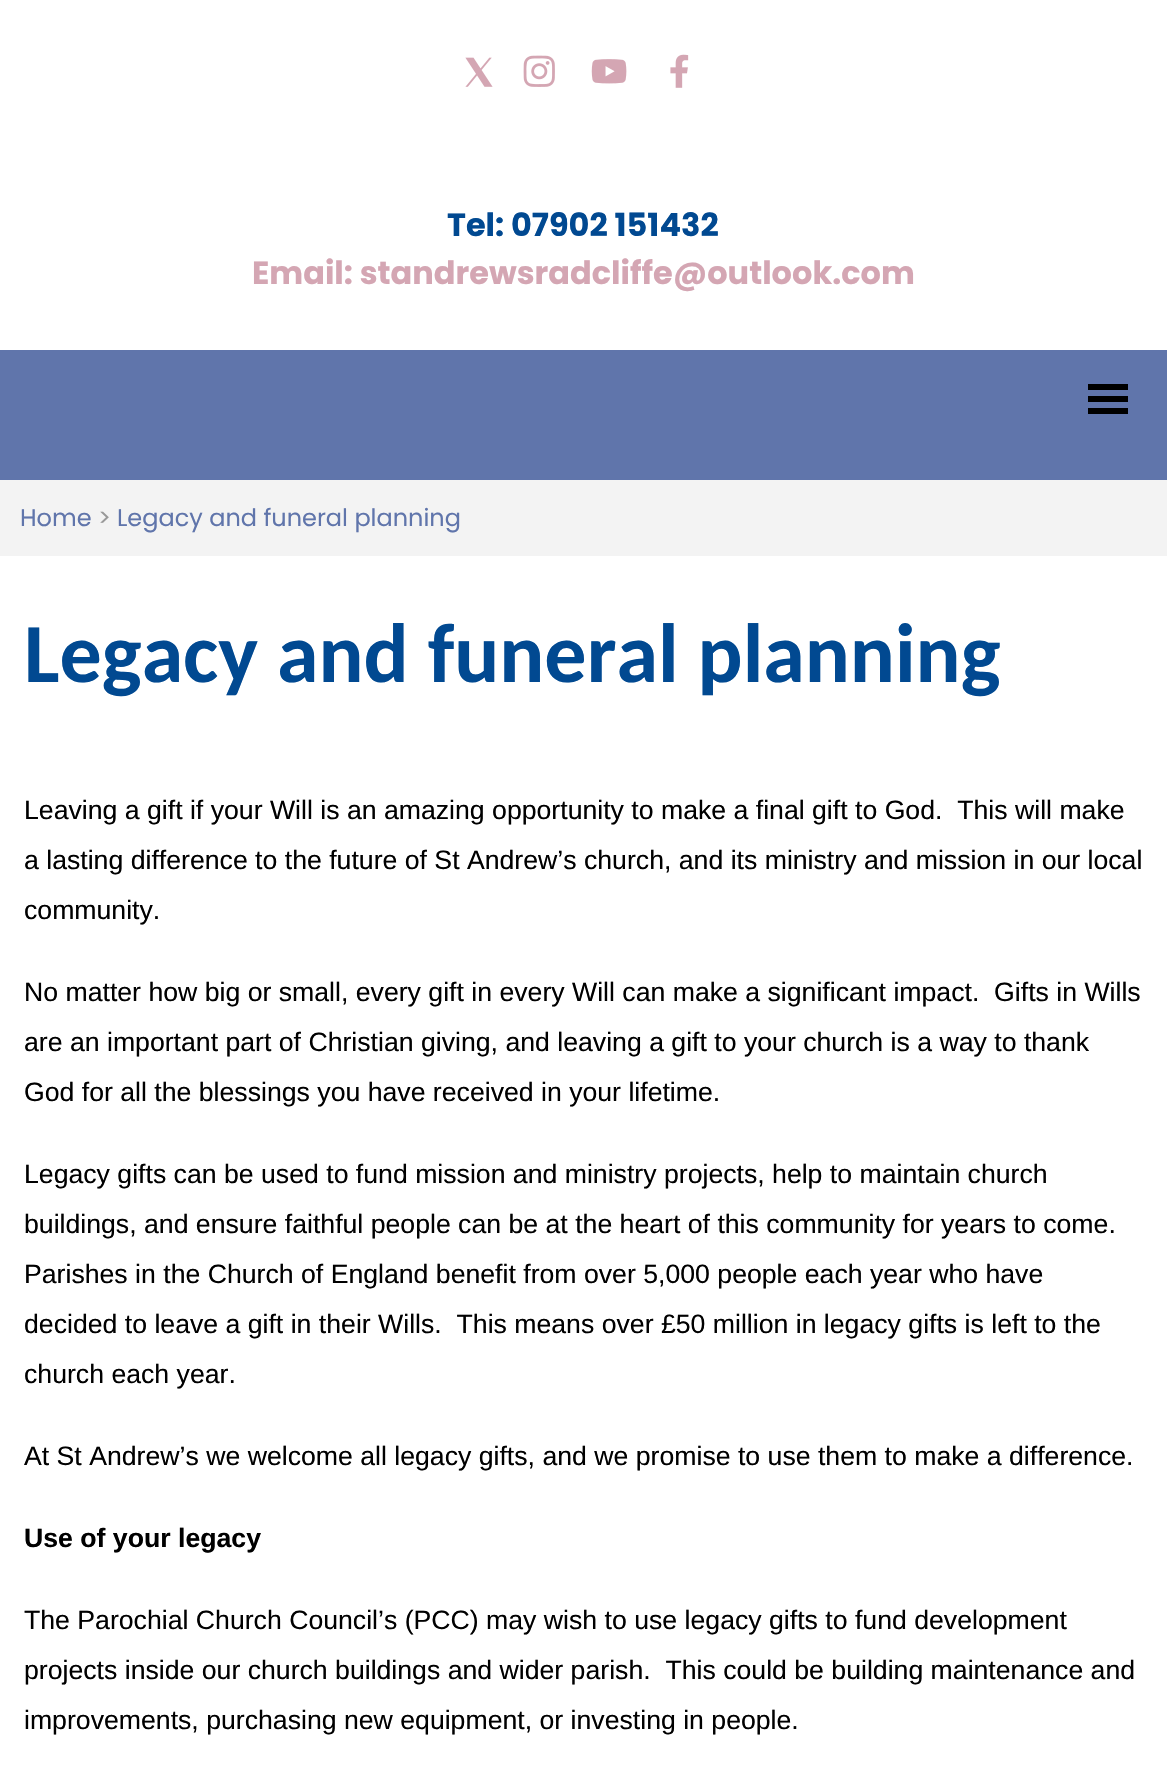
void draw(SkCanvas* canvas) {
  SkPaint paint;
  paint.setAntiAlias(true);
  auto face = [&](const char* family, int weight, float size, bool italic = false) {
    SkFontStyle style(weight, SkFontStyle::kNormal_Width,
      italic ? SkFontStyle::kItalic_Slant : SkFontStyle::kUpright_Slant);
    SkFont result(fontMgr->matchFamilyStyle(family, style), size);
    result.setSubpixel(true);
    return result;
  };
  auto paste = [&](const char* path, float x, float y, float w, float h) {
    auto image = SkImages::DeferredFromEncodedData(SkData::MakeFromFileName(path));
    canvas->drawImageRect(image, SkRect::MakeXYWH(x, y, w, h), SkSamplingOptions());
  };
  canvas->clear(0xffffffff);
  paste("img/1.png", 465, 57, 28, 30);
  paste("img/2.png", 523, 55, 32, 32);
  paste("img/3.png", 591, 59, 36, 25);
  paste("img/4.png", 670, 54, 19, 34);
  {
    const struct { float x, y, w, h; SkColor color; } items[] = {
      {0, 350, 1167, 130, 0xff6075ab},
      {1088, 384, 40, 6, 0xff000000},
      {1088, 396, 40, 6, 0xff000000},
      {1088, 408, 40, 6, 0xff000000},
      {0, 480, 1167, 76, 0xfff3f3f3},
    };
    for (auto [x, y, w, h, color] : items) {
      paint.setColor(color);
      canvas->drawRect(SkRect::MakeXYWH(x, y, w, h), paint);
    }
  }
  auto f0 = face("Poppins", 700, 32);
  paint.setColor(0xff014991);
  canvas->drawString("Tel: 07902 151432", 447, 236, f0, paint);
  paint.setColor(0xffd4a6b3);
  canvas->drawString("Email: standrewsradcliffe@outlook.com", 252, 284, f0, paint);
  auto f1 = face("Poppins", 400, 24);
  paint.setColor(0xff6075ab);
  canvas->drawString("Home", 20, 526, f1, paint);
  paint.setColor(0xff999999);
  canvas->drawString(">", 98, 526, f1, paint);
  paint.setColor(0xff6075ab);
  canvas->drawString("Legacy and funeral planning", 117, 526, f1, paint);
  auto f2 = face("Carlito", 700, 84);
  paint.setColor(0xff014991);
  canvas->drawString("Legacy and funeral planning", 24, 682, f2, paint);
  auto f3 = face("Liberation Sans", 400, 26.65f);
  paint.setColor(0xff000000);
  {
    const struct { const char* s; float x, y; } items[] = {
      {"Leaving a gift if your Will is an amazing opportunity to make a final gift to God.  This will make", 24, 819},
      {"a lasting difference to the future of St Andrew’s church, and its ministry and mission in our local", 24, 869},
      {"community.", 24, 919},
      {"No matter how big or small, every gift in every Will can make a significant impact.  Gifts in Wills", 24, 1001},
      {"are an important part of Christian giving, and leaving a gift to your church is a way to thank", 24, 1051},
      {"God for all the blessings you have received in your lifetime.", 24, 1101},
      {"Legacy gifts can be used to fund mission and ministry projects, help to maintain church", 24, 1183},
      {"buildings, and ensure faithful people can be at the heart of this community for years to come.", 24, 1233},
      {"Parishes in the Church of England benefit from over 5,000 people each year who have", 24, 1283},
      {"decided to leave a gift in their Wills.  This means over £50 million in legacy gifts is left to the", 24, 1333},
      {"church each year.", 24, 1383},
      {"At St Andrew’s we welcome all legacy gifts, and we promise to use them to make a difference.", 24, 1465},
    };
    for (auto [s, x, y] : items) {
      canvas->drawString(s, x, y, f3, paint);
    }
  }
  auto f4 = face("Liberation Sans", 700, 26.65f);
  canvas->drawString("Use of your legacy", 24, 1547, f4, paint);
  {
    const struct { const char* s; float x, y; } items[] = {
      {"The Parochial Church Council’s (PCC) may wish to use legacy gifts to fund development", 24, 1629},
      {"projects inside our church buildings and wider parish.  This could be building maintenance and", 24, 1679},
      {"improvements, purchasing new equipment, or investing in people.", 24, 1729},
    };
    for (auto [s, x, y] : items) {
      canvas->drawString(s, x, y, f3, paint);
    }
  }
}
